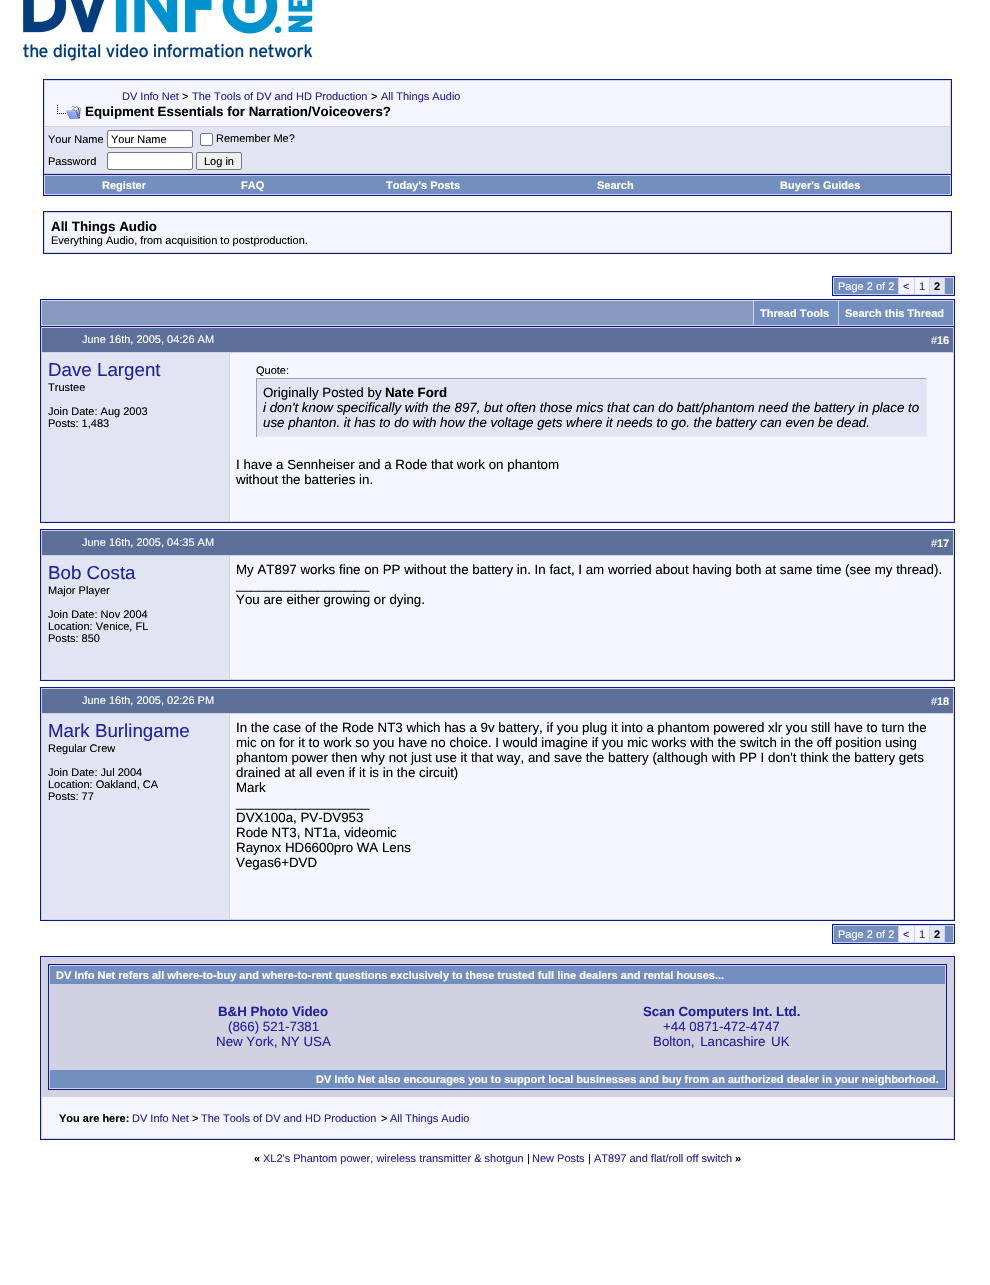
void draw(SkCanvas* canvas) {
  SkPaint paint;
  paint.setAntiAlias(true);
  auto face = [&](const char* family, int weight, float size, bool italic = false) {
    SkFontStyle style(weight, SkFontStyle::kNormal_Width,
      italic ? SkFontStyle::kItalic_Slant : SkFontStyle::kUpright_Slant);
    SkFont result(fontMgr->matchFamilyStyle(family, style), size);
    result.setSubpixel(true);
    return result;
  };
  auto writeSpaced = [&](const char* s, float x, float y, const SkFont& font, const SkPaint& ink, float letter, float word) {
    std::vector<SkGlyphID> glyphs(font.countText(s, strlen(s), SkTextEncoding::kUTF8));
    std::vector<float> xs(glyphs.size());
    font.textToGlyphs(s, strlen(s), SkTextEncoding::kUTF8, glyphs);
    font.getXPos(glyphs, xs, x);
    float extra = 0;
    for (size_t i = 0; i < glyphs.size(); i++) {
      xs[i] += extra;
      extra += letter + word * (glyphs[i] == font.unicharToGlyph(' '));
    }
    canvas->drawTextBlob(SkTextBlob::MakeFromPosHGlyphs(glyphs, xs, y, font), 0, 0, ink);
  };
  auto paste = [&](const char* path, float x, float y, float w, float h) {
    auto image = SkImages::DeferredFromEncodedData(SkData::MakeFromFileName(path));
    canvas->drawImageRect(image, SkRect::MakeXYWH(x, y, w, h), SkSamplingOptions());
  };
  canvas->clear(0xffffffff);
  paste("img/1.png", 18, 0, 296, 61);
  paint.setColor(0xffd1d1e1);
  canvas->drawRect(SkRect::MakeXYWH(43.5f, 79.5f, 908, 95), paint);
  paint.setStroke(true);
  paint.setStrokeWidth(1);
  paint.setColor(0xff0b198c);
  canvas->drawRect(SkRect::MakeXYWH(43.5f, 79.5f, 908, 95), paint);
  paint.setStroke(false);
  paint.setColor(0xfff5f5ff);
  canvas->drawRect(SkRect::MakeXYWH(45, 81, 905, 45), paint);
  paste("img/2.png", 57, 105, 24, 14);
  paint.setColor(0xffe1e4f2);
  canvas->drawRect(SkRect::MakeXYWH(45, 127, 905, 46), paint);
  paint.setColor(0xffffffff);
  canvas->drawRoundRect(SkRect::MakeXYWH(107.5f, 130.5f, 85, 17), 1.5f, 1.5f, paint);
  paint.setStroke(true);
  paint.setColor(0xff767676);
  canvas->drawRoundRect(SkRect::MakeXYWH(107.5f, 130.5f, 85, 17), 1.5f, 1.5f, paint);
  paint.setStroke(false);
  paint.setColor(0xffffffff);
  canvas->drawRoundRect(SkRect::MakeXYWH(200.5f, 133.5f, 12, 12), 1.5f, 1.5f, paint);
  paint.setStroke(true);
  paint.setColor(0xff767676);
  canvas->drawRoundRect(SkRect::MakeXYWH(200.5f, 133.5f, 12, 12), 1.5f, 1.5f, paint);
  paint.setStroke(false);
  paint.setColor(0xffffffff);
  canvas->drawRoundRect(SkRect::MakeXYWH(107.5f, 152.5f, 85, 17), 1.5f, 1.5f, paint);
  paint.setStroke(true);
  paint.setColor(0xff767676);
  canvas->drawRoundRect(SkRect::MakeXYWH(107.5f, 152.5f, 85, 17), 1.5f, 1.5f, paint);
  paint.setStroke(false);
  paint.setColor(0xffefefef);
  canvas->drawRoundRect(SkRect::MakeXYWH(196.5f, 152.5f, 45, 17), 1.5f, 1.5f, paint);
  paint.setStroke(true);
  paint.setColor(0xff767676);
  canvas->drawRoundRect(SkRect::MakeXYWH(196.5f, 152.5f, 45, 17), 1.5f, 1.5f, paint);
  paint.setStroke(false);
  {
    const struct { float x, y, w, h; SkColor color; } items[] = {
      {44, 175, 907, 20, 0xffd1d1e1},
      {951, 175, 1, 21, 0xff0b198c},
      {43, 195, 909, 1, 0xff0b198c},
      {43, 175, 1, 21, 0xff0b198c},
      {45, 176, 905, 18, 0xff738fbf},
    };
    for (auto [x, y, w, h, color] : items) {
      paint.setColor(color);
      canvas->drawRect(SkRect::MakeXYWH(x, y, w, h), paint);
    }
  }
  paint.setColor(0xffd1d1e1);
  canvas->drawRect(SkRect::MakeXYWH(43.5f, 211.5f, 908, 42), paint);
  paint.setStroke(true);
  paint.setColor(0xff0b198c);
  canvas->drawRect(SkRect::MakeXYWH(43.5f, 211.5f, 908, 42), paint);
  paint.setStroke(false);
  paint.setColor(0xfff5f5ff);
  canvas->drawRect(SkRect::MakeXYWH(45, 213, 905, 39), paint);
  paint.setColor(0xffd1d1e1);
  canvas->drawRect(SkRect::MakeXYWH(832.5f, 276.5f, 122, 19), paint);
  paint.setStroke(true);
  paint.setColor(0xff0b198c);
  canvas->drawRect(SkRect::MakeXYWH(832.5f, 276.5f, 122, 19), paint);
  paint.setStroke(false);
  {
    const struct { float x, y, w, h; SkColor color; } items[] = {
      {834, 278, 64, 16, 0xff738fbf},
      {899, 278, 15, 16, 0xfff5f5ff},
      {915, 278, 14, 16, 0xfff5f5ff},
      {930, 278, 14, 16, 0xffe1e4f2},
      {945, 278, 8, 16, 0xff738fbf},
      {41, 300, 913, 26, 0xffd1d1e1},
      {40, 299, 915, 1, 0xff0b198c},
      {954, 299, 1, 27, 0xff0b198c},
      {40, 299, 1, 27, 0xff0b198c},
      {42, 301, 711, 24, 0xff869bbf},
      {754, 301, 84, 24, 0xff738fbf},
      {839, 301, 114, 24, 0xff738fbf},
    };
    for (auto [x, y, w, h, color] : items) {
      paint.setColor(color);
      canvas->drawRect(SkRect::MakeXYWH(x, y, w, h), paint);
    }
  }
  paint.setStroke(true);
  paint.setColor(0xff0b198c);
  canvas->drawRect(SkRect::MakeXYWH(40.5f, 326.5f, 914, 196), paint);
  paint.setStroke(false);
  {
    const struct { float x, y, w, h; SkColor color; } items[] = {
      {42, 328, 911, 24, 0xff5c7099},
      {41, 327, 913, 1, 0xffd1d1e1},
      {41, 352, 189, 1, 0xffd1d1e1},
      {41, 327, 1, 166, 0xffd1d1e1},
      {953, 327, 1, 195, 0xffd1d1e1},
      {230, 352, 724, 1, 0xffd1d1e1},
      {42, 353, 187, 168, 0xffe1e4f2},
      {229, 353, 1, 169, 0xffd1d1e1},
      {230, 353, 723, 168, 0xfff5f5ff},
      {257, 379, 669, 57, 0xffe1e4f2},
      {256, 378, 671, 1, 0xff9f9f9f},
      {926, 378, 1, 59, 0xffeeeeee},
      {256, 436, 671, 1, 0xffeeeeee},
      {256, 378, 1, 59, 0xff9f9f9f},
      {41, 521, 913, 1, 0xffd1d1e1},
      {41, 493, 1, 29, 0xffd1d1e1},
    };
    for (auto [x, y, w, h, color] : items) {
      paint.setColor(color);
      canvas->drawRect(SkRect::MakeXYWH(x, y, w, h), paint);
    }
  }
  paint.setStroke(true);
  paint.setColor(0xff0b198c);
  canvas->drawRect(SkRect::MakeXYWH(40.5f, 529.5f, 914, 151), paint);
  paint.setStroke(false);
  {
    const struct { float x, y, w, h; SkColor color; } items[] = {
      {42, 531, 911, 24, 0xff5c7099},
      {41, 530, 913, 1, 0xffd1d1e1},
      {41, 555, 189, 1, 0xffd1d1e1},
      {41, 530, 1, 120, 0xffd1d1e1},
      {953, 530, 1, 150, 0xffd1d1e1},
      {230, 555, 724, 1, 0xffd1d1e1},
      {42, 556, 187, 123, 0xffe1e4f2},
      {229, 556, 1, 124, 0xffd1d1e1},
      {230, 556, 723, 123, 0xfff5f5ff},
      {41, 679, 913, 1, 0xffd1d1e1},
      {41, 650, 1, 30, 0xffd1d1e1},
    };
    for (auto [x, y, w, h, color] : items) {
      paint.setColor(color);
      canvas->drawRect(SkRect::MakeXYWH(x, y, w, h), paint);
    }
  }
  paint.setStroke(true);
  paint.setColor(0xff0b198c);
  canvas->drawRect(SkRect::MakeXYWH(40.5f, 687.5f, 914, 233), paint);
  paint.setStroke(false);
  {
    const struct { float x, y, w, h; SkColor color; } items[] = {
      {42, 689, 911, 24, 0xff5c7099},
      {41, 688, 913, 1, 0xffd1d1e1},
      {41, 713, 189, 1, 0xffd1d1e1},
      {41, 688, 1, 188, 0xffd1d1e1},
      {953, 688, 1, 232, 0xffd1d1e1},
      {230, 713, 724, 1, 0xffd1d1e1},
      {42, 714, 187, 205, 0xffe1e4f2},
      {229, 714, 1, 206, 0xffd1d1e1},
      {230, 714, 723, 205, 0xfff5f5ff},
      {41, 919, 913, 1, 0xffd1d1e1},
      {41, 876, 1, 44, 0xffd1d1e1},
    };
    for (auto [x, y, w, h, color] : items) {
      paint.setColor(color);
      canvas->drawRect(SkRect::MakeXYWH(x, y, w, h), paint);
    }
  }
  canvas->drawRect(SkRect::MakeXYWH(832.5f, 924.5f, 122, 19), paint);
  paint.setStroke(true);
  paint.setColor(0xff0b198c);
  canvas->drawRect(SkRect::MakeXYWH(832.5f, 924.5f, 122, 19), paint);
  paint.setStroke(false);
  {
    const struct { float x, y, w, h; SkColor color; } items[] = {
      {834, 926, 64, 16, 0xff738fbf},
      {899, 926, 15, 16, 0xfff5f5ff},
      {915, 926, 14, 16, 0xfff5f5ff},
      {930, 926, 14, 16, 0xffe1e4f2},
      {945, 926, 8, 16, 0xff738fbf},
    };
    for (auto [x, y, w, h, color] : items) {
      paint.setColor(color);
      canvas->drawRect(SkRect::MakeXYWH(x, y, w, h), paint);
    }
  }
  paint.setColor(0xffd1d1e1);
  canvas->drawRect(SkRect::MakeXYWH(40.5f, 956.5f, 914, 183), paint);
  paint.setStroke(true);
  paint.setColor(0xff0b198c);
  canvas->drawRect(SkRect::MakeXYWH(40.5f, 956.5f, 914, 183), paint);
  canvas->drawRect(SkRect::MakeXYWH(48.5f, 964.5f, 898, 125), paint);
  paint.setStroke(false);
  {
    const struct { float x, y, w, h; SkColor color; } items[] = {
      {50, 966, 895, 18, 0xff738fbf},
      {50, 1070, 895, 18, 0xff738fbf},
      {42, 1097, 911, 41, 0xfff5f5ff},
    };
    for (auto [x, y, w, h, color] : items) {
      paint.setColor(color);
      canvas->drawRect(SkRect::MakeXYWH(x, y, w, h), paint);
    }
  }
  auto f0 = face("Liberation Sans", 400, 11);
  paint.setColor(0xff22229c);
  canvas->drawString("DV Info Net", 122, 100, f0, paint);
  paint.setColor(0xff000000);
  canvas->drawString(">", 182, 100, f0, paint);
  paint.setColor(0xff22229c);
  canvas->drawString("The Tools of DV and HD Production", 192, 100, f0, paint);
  paint.setColor(0xff000000);
  canvas->drawString(">", 371, 100, f0, paint);
  paint.setColor(0xff22229c);
  canvas->drawString("All Things Audio", 381, 100, f0, paint);
  auto f1 = face("Liberation Sans", 700, 13.33f);
  paint.setColor(0xff000000);
  canvas->drawString("Equipment Essentials for Narration/Voiceovers?", 85, 116, f1, paint);
  {
    const struct { const char* s; float x, y; } items[] = {
      {"Your Name", 48, 143},
      {"Your Name", 111, 143},
      {"Remember Me?", 216, 142},
      {"Password", 48, 165},
      {"Log in", 204, 165},
    };
    for (auto [s, x, y] : items) {
      canvas->drawString(s, x, y, f0, paint);
    }
  }
  auto f2 = face("Liberation Sans", 700, 11);
  paint.setColor(0xffffffff);
  {
    const struct { const char* s; float x, y; } items[] = {
      {"Register", 102, 189},
      {"FAQ", 241, 189},
      {"Today's Posts", 386, 189},
      {"Search", 597, 189},
      {"Buyer's Guides", 780, 189},
    };
    for (auto [s, x, y] : items) {
      canvas->drawString(s, x, y, f2, paint);
    }
  }
  paint.setColor(0xff000000);
  canvas->drawString("All Things Audio", 51, 231, f1, paint);
  canvas->drawString("Everything Audio, from acquisition to postproduction.", 51, 244, f0, paint);
  paint.setColor(0xffffffff);
  canvas->drawString("Page 2 of 2", 838, 290, f0, paint);
  paint.setColor(0xff22229c);
  canvas->drawString("<", 903, 290, f0, paint);
  canvas->drawString("1", 919, 290, f0, paint);
  paint.setColor(0xff000000);
  canvas->drawString("2", 934, 290, f2, paint);
  paint.setColor(0xffffffff);
  canvas->drawString("Thread Tools", 760, 317, f2, paint);
  canvas->drawString("Search this Thread", 845, 317, f2, paint);
  canvas->drawString("June 16th, 2005, 04:26 AM", 82, 343, f0, paint);
  canvas->drawString("#", 931, 344, f0, paint);
  canvas->drawString("16", 937, 344, f2, paint);
  auto f3 = face("Liberation Sans", 400, 18.75f);
  paint.setColor(0xff22229c);
  canvas->drawString("Dave Largent", 48, 376, f3, paint);
  paint.setColor(0xff000000);
  {
    const struct { const char* s; float x, y; } items[] = {
      {"Trustee", 48, 391},
      {"Join Date: Aug 2003", 48, 415},
      {"Posts: 1,483", 48, 427},
      {"Quote:", 256, 374},
    };
    for (auto [s, x, y] : items) {
      canvas->drawString(s, x, y, f0, paint);
    }
  }
  auto f4 = face("Liberation Sans", 400, 13.33f);
  canvas->drawString("Originally Posted by", 263, 397, f4, paint);
  auto f5 = face("Liberation Sans", 700, 13.3f);
  canvas->drawString("Nate Ford", 385, 397, f5, paint);
  auto f6 = face("Liberation Sans", 400, 13.33f, true);
  canvas->drawString("i don't know specifically with the 897, but often those mics that can do batt/phantom need the battery in place to", 263, 412, f6, paint);
  canvas->drawString("use phanton. it has to do with how the voltage gets where it needs to go. the battery can even be dead.", 263, 427, f6, paint);
  canvas->drawString("I have a Sennheiser and a Rode that work on phantom", 236, 469, f4, paint);
  canvas->drawString("without the batteries in.", 236, 484, f4, paint);
  paint.setColor(0xffffffff);
  canvas->drawString("June 16th, 2005, 04:35 AM", 82, 546, f0, paint);
  canvas->drawString("#", 931, 547, f0, paint);
  canvas->drawString("17", 937, 547, f2, paint);
  paint.setColor(0xff22229c);
  canvas->drawString("Bob Costa", 48, 579, f3, paint);
  paint.setColor(0xff000000);
  {
    const struct { const char* s; float x, y; } items[] = {
      {"Major Player", 48, 594},
      {"Join Date: Nov 2004", 48, 618},
      {"Location: Venice, FL", 48, 630},
      {"Posts: 850", 48, 642},
    };
    for (auto [s, x, y] : items) {
      canvas->drawString(s, x, y, f0, paint);
    }
  }
  {
    const struct { const char* s; float x, y; } items[] = {
      {"My AT897 works fine on PP without the battery in. In fact, I am worried about having both at same time (see my thread).", 236, 574},
      {"__________________", 236, 589},
      {"You are either growing or dying.", 236, 604},
    };
    for (auto [s, x, y] : items) {
      canvas->drawString(s, x, y, f4, paint);
    }
  }
  paint.setColor(0xffffffff);
  canvas->drawString("June 16th, 2005, 02:26 PM", 82, 704, f0, paint);
  canvas->drawString("#", 931, 705, f0, paint);
  canvas->drawString("18", 937, 705, f2, paint);
  paint.setColor(0xff22229c);
  canvas->drawString("Mark Burlingame", 48, 737, f3, paint);
  paint.setColor(0xff000000);
  {
    const struct { const char* s; float x, y; } items[] = {
      {"Regular Crew", 48, 752},
      {"Join Date: Jul 2004", 48, 776},
      {"Location: Oakland, CA", 48, 788},
      {"Posts: 77", 48, 800},
    };
    for (auto [s, x, y] : items) {
      canvas->drawString(s, x, y, f0, paint);
    }
  }
  {
    const struct { const char* s; float x, y; } items[] = {
      {"In the case of the Rode NT3 which has a 9v battery, if you plug it into a phantom powered xlr you still have to turn the", 236, 732},
      {"mic on for it to work so you have no choice. I would imagine if you mic works with the switch in the off position using", 236, 747},
      {"phantom power then why not just use it that way, and save the battery (although with PP I don't think the battery gets", 236, 762},
      {"drained at all even if it is in the circuit)", 236, 777},
      {"Mark", 236, 792},
      {"__________________", 236, 807},
      {"DVX100a, PV-DV953", 236, 822},
      {"Rode NT3, NT1a, videomic", 236, 837},
      {"Raynox HD6600pro WA Lens", 236, 852},
      {"Vegas6+DVD", 236, 867},
    };
    for (auto [s, x, y] : items) {
      canvas->drawString(s, x, y, f4, paint);
    }
  }
  paint.setColor(0xffffffff);
  canvas->drawString("Page 2 of 2", 838, 938, f0, paint);
  paint.setColor(0xff22229c);
  canvas->drawString("<", 903, 938, f0, paint);
  canvas->drawString("1", 919, 938, f0, paint);
  paint.setColor(0xff000000);
  canvas->drawString("2", 934, 938, f2, paint);
  paint.setColor(0xffffffff);
  canvas->drawString("DV Info Net refers all where-to-buy and where-to-rent questions exclusively to these trusted full line dealers and rental houses...", 56, 979, f2, paint);
  paint.setColor(0xff22229c);
  canvas->drawString("B&H Photo Video", 218, 1016, f5, paint);
  canvas->drawString("(866) 521-7381", 228, 1031, f4, paint);
  canvas->drawString("New York, NY USA", 216, 1046, f4, paint);
  canvas->drawString("Scan Computers Int. Ltd.", 643, 1016, f5, paint);
  canvas->drawString("+44 0871-472-4747", 663, 1031, f4, paint);
  writeSpaced("Bolton, Lancashire UK", 653, 1046, f4, paint, 0, 2);
  paint.setColor(0xffffffff);
  canvas->drawString("DV Info Net also encourages you to support local businesses and buy from an authorized dealer in your neighborhood.", 316, 1083, f2, paint);
  paint.setColor(0xff000000);
  canvas->drawString("You are here:", 59, 1122, f2, paint);
  paint.setColor(0xff22229c);
  canvas->drawString("DV Info Net", 132, 1122, f0, paint);
  paint.setColor(0xff000000);
  canvas->drawString(">", 192, 1122, f0, paint);
  paint.setColor(0xff22229c);
  canvas->drawString("The Tools of DV and HD Production", 201, 1122, f0, paint);
  paint.setColor(0xff000000);
  canvas->drawString(">", 381, 1122, f0, paint);
  paint.setColor(0xff22229c);
  canvas->drawString("All Things Audio", 390, 1122, f0, paint);
  paint.setColor(0xff000000);
  canvas->drawString("«", 254, 1162, f2, paint);
  paint.setColor(0xff22229c);
  canvas->drawString("XL2's Phantom power, wireless transmitter & shotgun", 263, 1162, f0, paint);
  paint.setColor(0xff000000);
  canvas->drawString("|", 527, 1162, f0, paint);
  paint.setColor(0xff22229c);
  canvas->drawString("New Posts", 532, 1162, f0, paint);
  paint.setColor(0xff000000);
  canvas->drawString("|", 588, 1162, f0, paint);
  paint.setColor(0xff22229c);
  canvas->drawString("AT897 and flat/roll off switch", 594, 1162, f0, paint);
  paint.setColor(0xff000000);
  canvas->drawString("»", 735, 1162, f2, paint);
}
